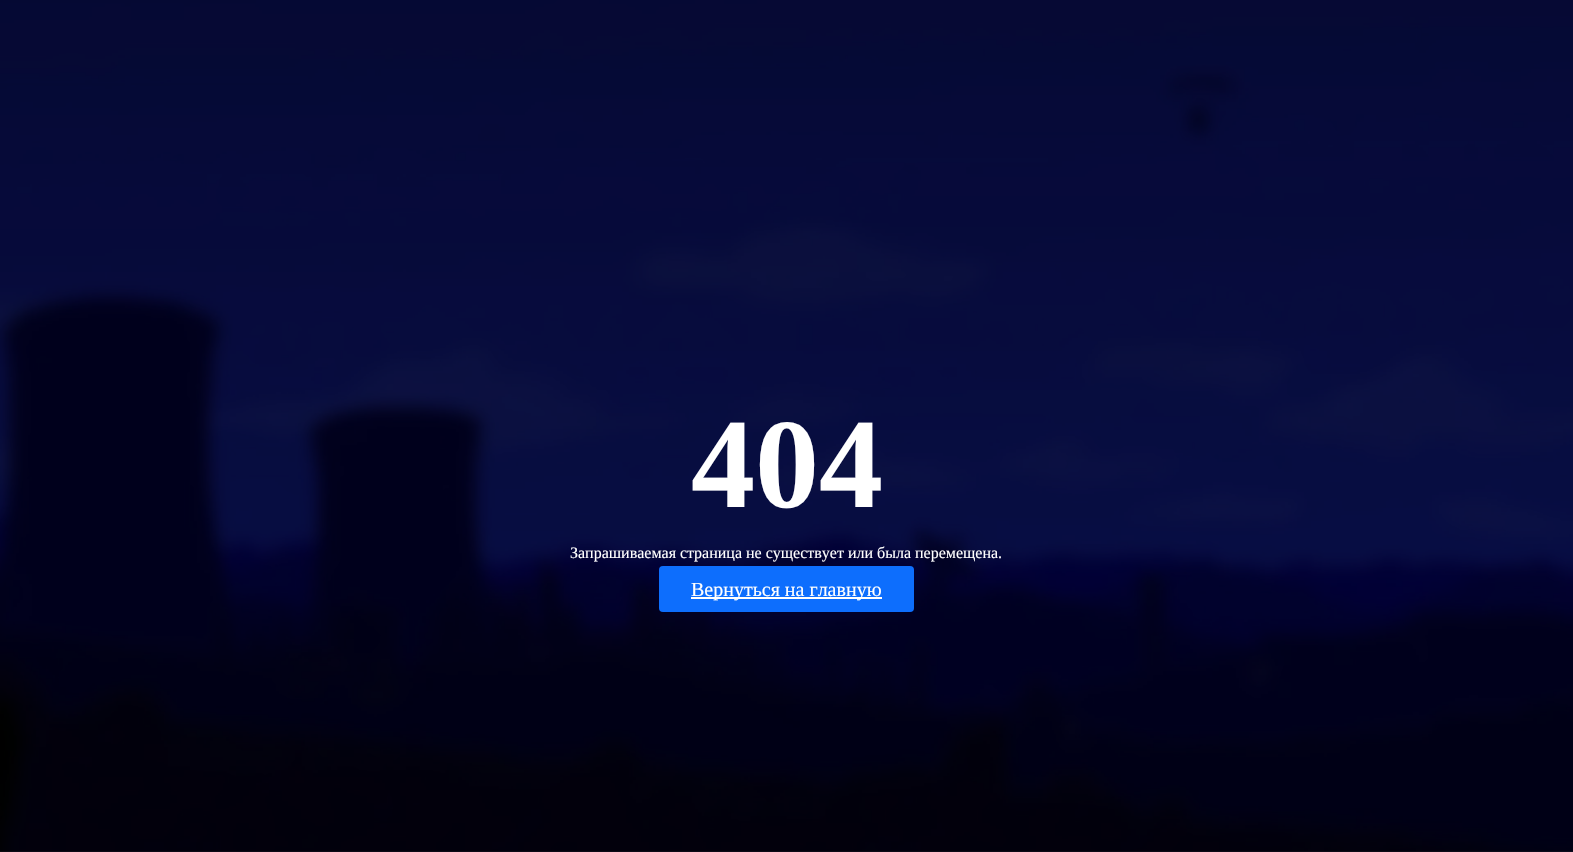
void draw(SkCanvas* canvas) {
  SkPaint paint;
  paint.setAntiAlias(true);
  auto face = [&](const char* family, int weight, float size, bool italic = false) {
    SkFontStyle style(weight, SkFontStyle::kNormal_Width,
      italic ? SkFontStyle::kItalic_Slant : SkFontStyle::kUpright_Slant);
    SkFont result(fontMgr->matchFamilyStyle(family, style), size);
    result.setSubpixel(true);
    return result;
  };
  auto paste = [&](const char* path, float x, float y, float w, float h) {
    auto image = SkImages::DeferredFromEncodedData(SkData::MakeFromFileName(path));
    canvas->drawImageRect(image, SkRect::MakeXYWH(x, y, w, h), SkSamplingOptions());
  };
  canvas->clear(0xffffffff);
  paste("img/1.png", 0, 0, 1573, 852);
  paint.setColor(0xff0d6efd);
  canvas->drawRoundRect(SkRect::MakeXYWH(659, 566, 255, 46), 4, 4, paint);
  paint.setColor(0xffffffff);
  canvas->drawRect(SkRect::MakeXYWH(691, 597, 191, 2), paint);
  auto f0 = face("Liberation Serif", 700, 128);
  canvas->drawString("404", 691, 507, f0, paint);
  auto f1 = face("Liberation Serif", 400, 16);
  canvas->drawString("Запрашиваемая страница не существует или была перемещена.", 570, 558, f1, paint);
  auto f2 = face("Liberation Serif", 400, 20);
  canvas->drawString("Вернуться на главную", 691, 596, f2, paint);
}
